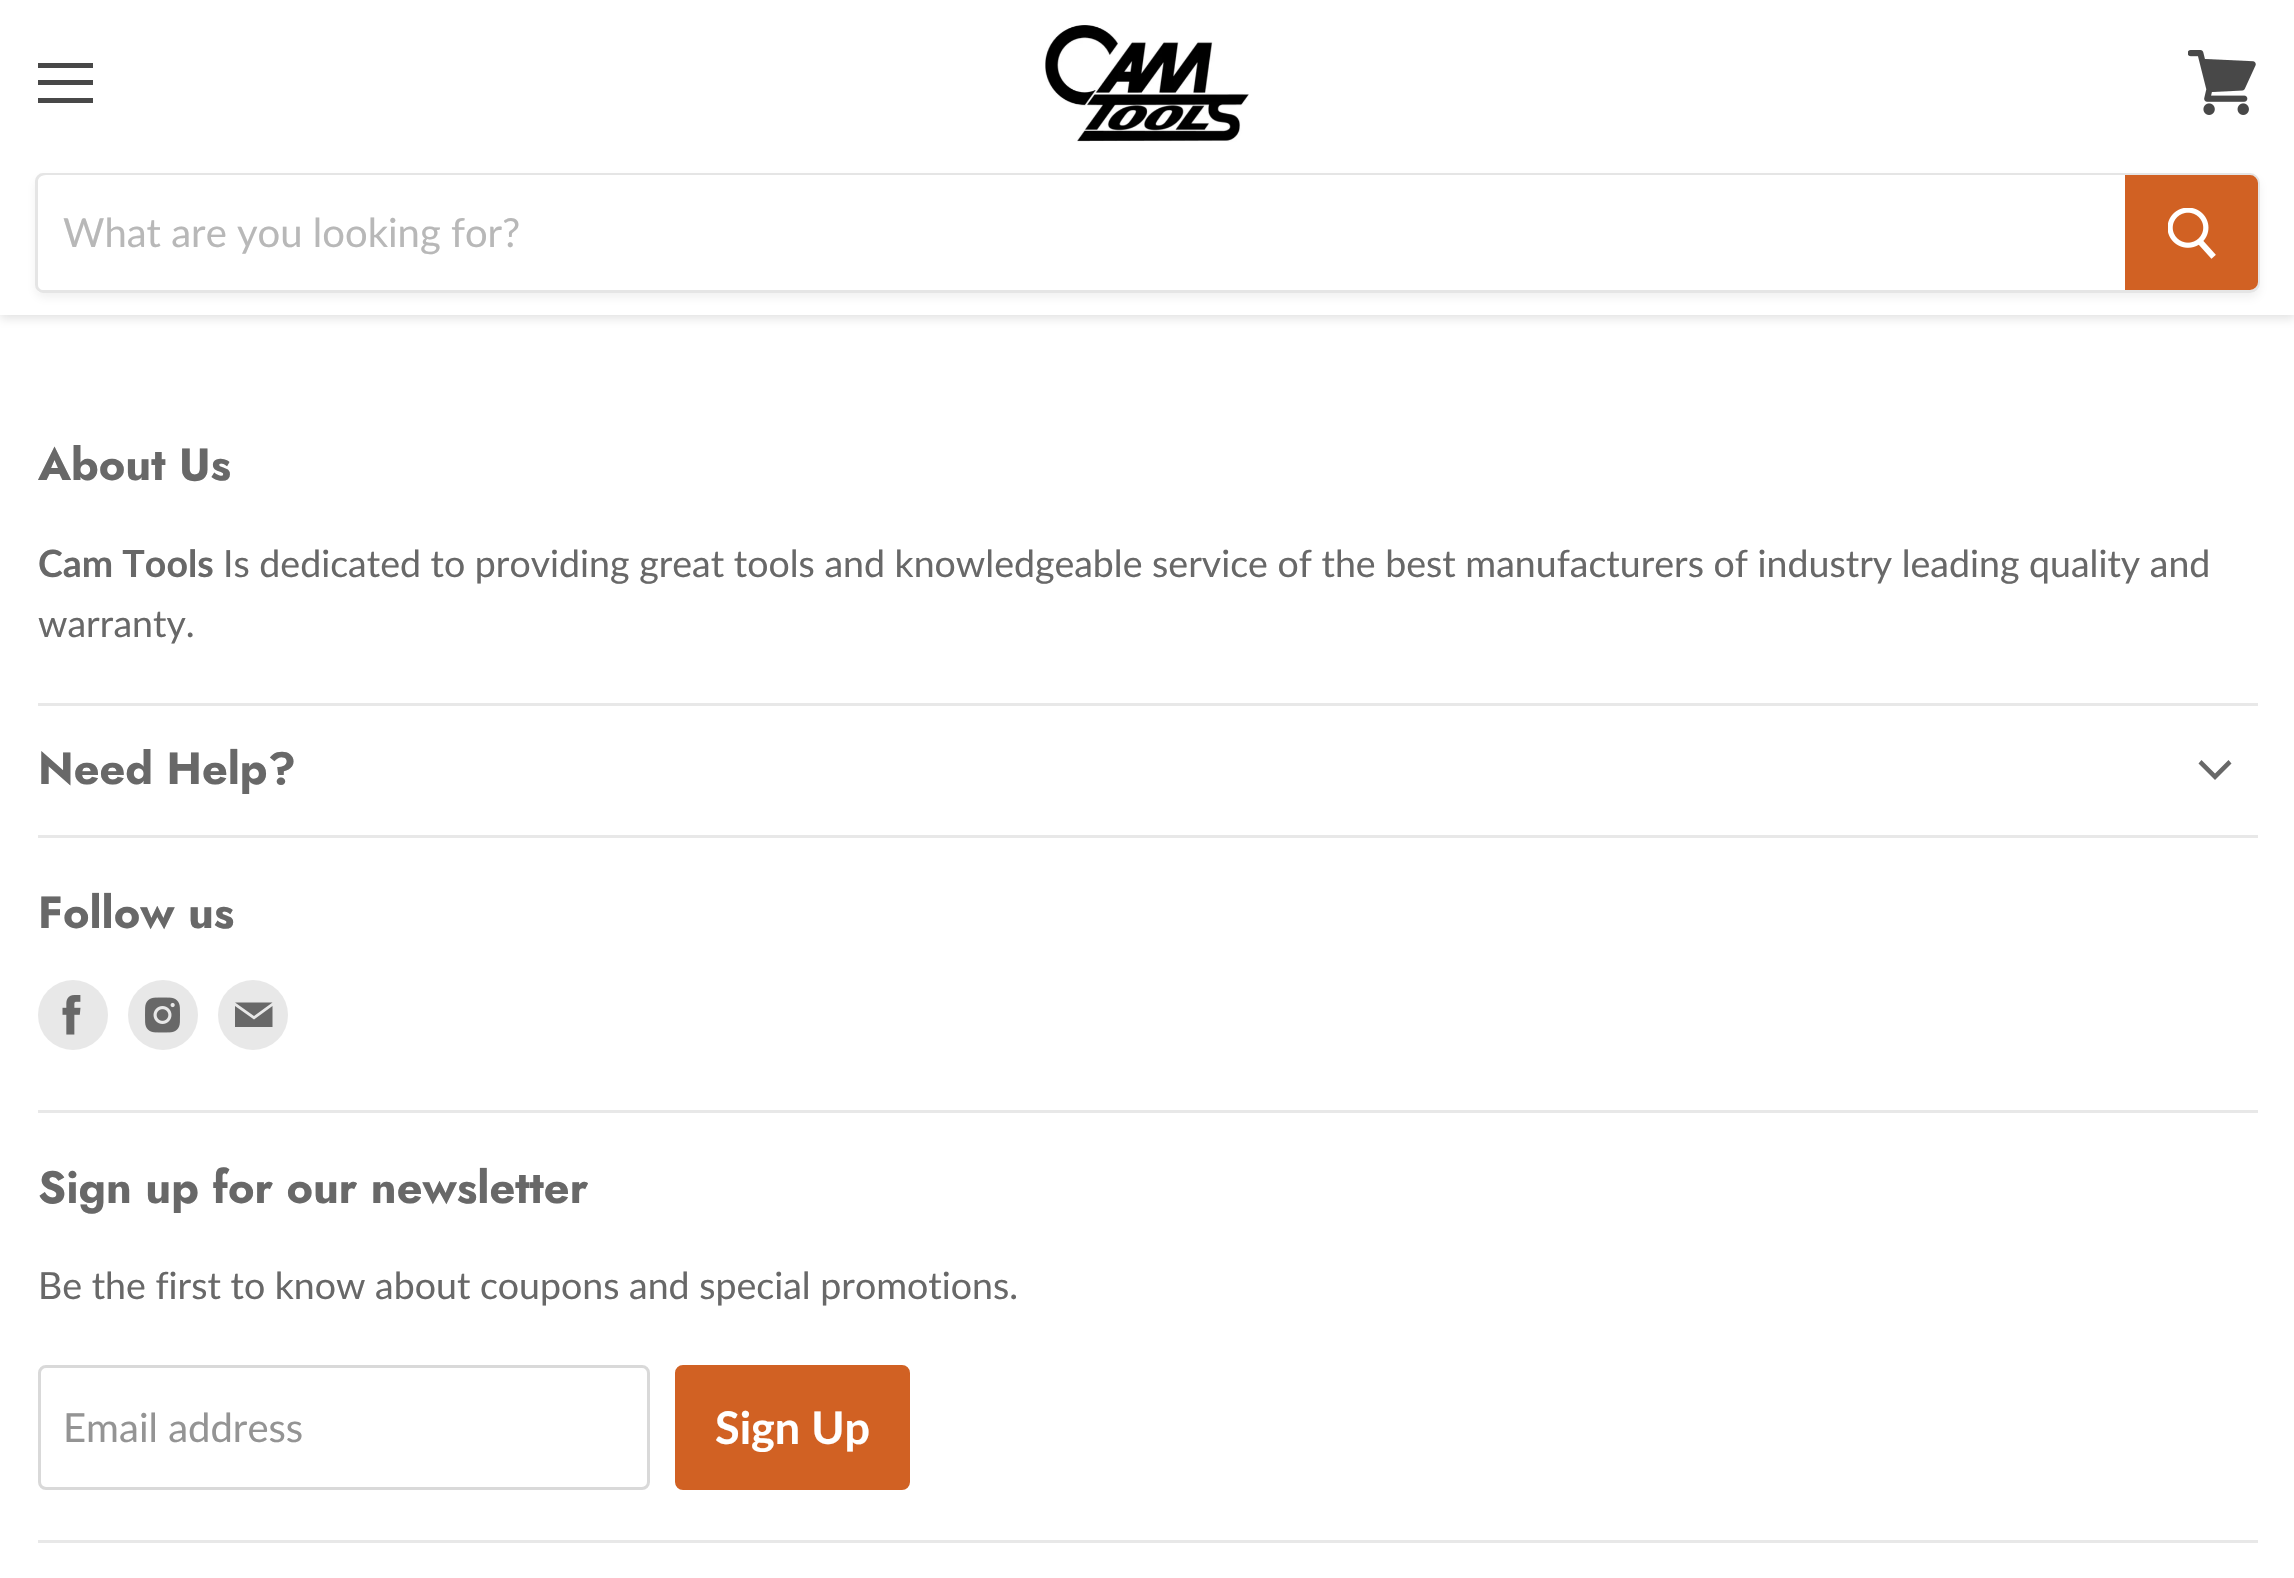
void draw(SkCanvas* canvas) {
  SkPaint paint;
  paint.setAntiAlias(true);
  auto face = [&](const char* family, int weight, float size, bool italic = false) {
    SkFontStyle style(weight, SkFontStyle::kNormal_Width,
      italic ? SkFontStyle::kItalic_Slant : SkFontStyle::kUpright_Slant);
    SkFont result(fontMgr->matchFamilyStyle(family, style), size);
    result.setSubpixel(true);
    return result;
  };
  auto paste = [&](const char* path, float x, float y, float w, float h) {
    auto image = SkImages::DeferredFromEncodedData(SkData::MakeFromFileName(path));
    canvas->drawImageRect(image, SkRect::MakeXYWH(x, y, w, h), SkSamplingOptions());
  };
  auto shape = [&](const char* data, bool evenOdd = false) {
    SkPath result = *SkParsePath::FromSVGString(data);
    if (evenOdd) result.setFillType(SkPathFillType::kEvenOdd);
    return result;
  };
  canvas->clear(0xffffffff);
  paint.setColor(0x407f7f7f);
  paint.setMaskFilter(SkMaskFilter::MakeBlur(kNormal_SkBlurStyle, 5));
  canvas->drawRect(SkRect::MakeXYWH(0, 3, 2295, 315), paint);
  paint.setMaskFilter(nullptr);
  {
    const struct { float x, y, w, h; SkColor color; } items[] = {
      {0, 0, 2294, 315, 0xffffffff},
      {38, 63, 55, 5, 0xff484848},
      {38, 80, 55, 5, 0xff484848},
      {38, 98, 55, 5, 0xff484848},
    };
    for (auto [x, y, w, h, color] : items) {
      paint.setColor(color);
      canvas->drawRect(SkRect::MakeXYWH(x, y, w, h), paint);
    }
  }
  paste("img/1.png", 2188, 50, 68, 65);
  paste("img/2.png", 1045, 25, 204, 117);
  canvas->save();
  canvas->clipPath(shape("M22 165H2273V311H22ZM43 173H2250C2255.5 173 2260 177.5 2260 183V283C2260 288.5 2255.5 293 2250 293H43C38.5 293 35 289.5 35 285V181C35 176.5 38.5 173 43 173Z", true), true);
  paint.setColor(0x1c7f7f7f);
  paint.setMaskFilter(SkMaskFilter::MakeBlur(kNormal_SkBlurStyle, 4));
  canvas->drawRoundRect(SkRect::MakeXYWH(35, 178, 2225, 120), 10, 10, paint);
  paint.setMaskFilter(nullptr);
  canvas->restore();
  paint.setStroke(true);
  paint.setStrokeWidth(3);
  paint.setColor(0x337f7f7f);
  canvas->drawPath(shape("M43 174.5H2250C2254.5 174.5 2258.5 178.5 2258.5 183V283C2258.5 287.5 2254.5 291.5 2250 291.5H43C39.5 291.5 36.5 288.5 36.5 285V181C36.5 177.5 39.5 174.5 43 174.5Z"), paint);
  paint.setStroke(false);
  paint.setColor(0xffffffff);
  canvas->drawPath(shape("M46 175H2125V290H46C41.5 290 38 286.5 38 282V183C38 178.5 41.5 175 46 175Z"), paint);
  paint.setColor(0xffd16123);
  canvas->drawPath(shape("M2126.5 176.5H2250C2253.5 176.5 2256.5 179.5 2256.5 183V282C2256.5 285.5 2253.5 288.5 2250 288.5H2126.5Z"), paint);
  paint.setStroke(true);
  canvas->drawPath(shape("M2126.5 176.5H2250C2253.5 176.5 2256.5 179.5 2256.5 183V282C2256.5 285.5 2253.5 288.5 2250 288.5H2126.5Z"), paint);
  paste("img/3.png", 2168, 208, 48, 51);
  paint.setStroke(false);
  paint.setColor(0xffe8e8e8);
  canvas->drawRect(SkRect::MakeXYWH(38, 703, 2220, 3), paint);
  canvas->drawRect(SkRect::MakeXYWH(38, 835, 2220, 3), paint);
  paint.setColor(0xff686868);
  canvas->drawPath(shape("M2215 780L2231.5 763.5L2228.5 760L2215 773.5ZM2215 773.5L2201.5 760L2198.5 763.5L2215 780Z", true), paint);
  paint.setColor(0xffe8e8e8);
  canvas->drawRect(SkRect::MakeXYWH(38, 1110, 2220, 3), paint);
  canvas->drawCircle(73, 1015, 35, paint);
  paste("img/4.png", 62, 995, 19, 40);
  canvas->drawCircle(163, 1015, 35, paint);
  paste("img/5.png", 145, 997, 35, 36);
  canvas->drawCircle(253, 1015, 35, paint);
  paint.setColor(0xff686868);
  canvas->drawPath(shape("M272.5 1002.5H235L254 1016ZM254 1019.5L235 1006V1027H272.5V1006Z", true), paint);
  paint.setColor(0xffe8e8e8);
  canvas->drawRect(SkRect::MakeXYWH(38, 1540, 2220, 3), paint);
  paint.setStroke(true);
  paint.setColor(0xffd9d9d9);
  canvas->drawRoundRect(SkRect::MakeXYWH(39.5f, 1366.5f, 609, 122), 6.5f, 6.5f, paint);
  paint.setStroke(false);
  paint.setColor(0xffd16123);
  canvas->drawRoundRect(SkRect::MakeXYWH(676.5f, 1366.5f, 232, 122), 6.5f, 6.5f, paint);
  paint.setStroke(true);
  canvas->drawRoundRect(SkRect::MakeXYWH(676.5f, 1366.5f, 232, 122), 6.5f, 6.5f, paint);
  auto f0 = face("Lato", 400, 40);
  paint.setStroke(false);
  paint.setColor(0xffb8b8b8);
  canvas->drawString("What are you looking for?", 63, 247, f0, paint);
  auto f1 = face("Jost", 700, 45);
  paint.setColor(0xff686868);
  canvas->drawString("About Us", 38, 480, f1, paint);
  auto f2 = face("Lato", 700, 37.5f);
  canvas->drawString("Cam Tools", 38, 577, f2, paint);
  auto f3 = face("Lato", 400, 37.5f);
  canvas->drawString("Is dedicated to providing great tools and knowledgeable service of the best manufacturers of industry leading quality and", 223, 577, f3, paint);
  canvas->drawString("warranty.", 38, 637, f3, paint);
  {
    const struct { const char* s; float x, y; } items[] = {
      {"Need Help?", 38, 784},
      {"Follow us", 38, 928},
      {"Sign up for our newsletter", 38, 1203},
    };
    for (auto [s, x, y] : items) {
      canvas->drawString(s, x, y, f1, paint);
    }
  }
  canvas->drawString("Be the first to know about coupons and special promotions.", 38, 1299, f3, paint);
  paint.setColor(0xff949494);
  canvas->drawString("Email address", 63, 1442, f0, paint);
  auto f4 = face("Lato", 700, 45);
  paint.setColor(0xffffffff);
  canvas->drawString("Sign Up", 715, 1444, f4, paint);
}
